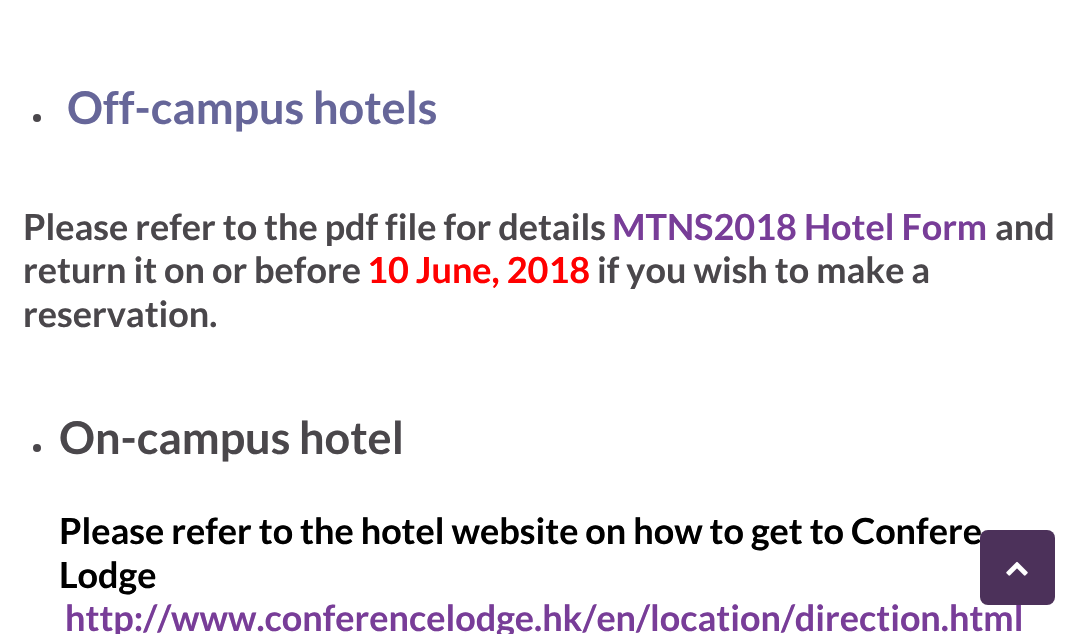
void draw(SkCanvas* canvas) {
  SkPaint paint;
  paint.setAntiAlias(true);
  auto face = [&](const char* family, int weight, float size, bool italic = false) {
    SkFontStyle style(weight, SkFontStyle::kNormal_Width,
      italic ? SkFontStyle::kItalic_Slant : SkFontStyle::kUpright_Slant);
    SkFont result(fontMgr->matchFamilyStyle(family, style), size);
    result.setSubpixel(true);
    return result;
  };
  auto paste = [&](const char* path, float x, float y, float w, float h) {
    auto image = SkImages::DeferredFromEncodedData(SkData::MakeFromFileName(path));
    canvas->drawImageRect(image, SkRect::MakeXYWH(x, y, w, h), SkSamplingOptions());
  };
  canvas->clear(0xffffffff);
  paint.setColor(0xff4a474b);
  canvas->drawCircle(37, 118, 4, paint);
  canvas->drawCircle(37, 448, 4, paint);
  paint.setColor(0x4dffffff);
  paint.setMaskFilter(SkMaskFilter::MakeBlur(kNormal_SkBlurStyle, 1.5f));
  canvas->drawRoundRect(SkRect::MakeXYWH(980, 530, 75, 75), 8, 8, paint);
  paint.setMaskFilter(nullptr);
  auto f0 = face("Lato", 700, 45);
  paint.setColor(0xff666699);
  canvas->drawString("Off-campus hotels", 67, 124, f0, paint);
  auto f1 = face("Lato", 700, 36);
  paint.setColor(0xff4a474b);
  canvas->drawString("Please refer to the pdf file for details", 23, 240, f1, paint);
  paint.setColor(0xff783d98);
  canvas->drawString("MTNS2018 Hotel Form", 612, 240, f1, paint);
  paint.setColor(0xff4a474b);
  canvas->drawString("and", 995, 240, f1, paint);
  canvas->drawString("return it on or before", 23, 283, f1, paint);
  paint.setColor(0xffff0000);
  canvas->drawString("10 June, 2018", 367, 283, f1, paint);
  paint.setColor(0xff4a474b);
  canvas->drawString("if you wish to make a", 597, 283, f1, paint);
  canvas->drawString("reservation.", 23, 327, f1, paint);
  canvas->drawString("On-campus hotel", 59, 454, f0, paint);
  paint.setColor(0xff000000);
  canvas->drawString("Please refer to the hotel website on how to get to Confere", 59, 544, f1, paint);
  canvas->drawString("Lodge", 59, 588, f1, paint);
  paint.setColor(0xff783d98);
  canvas->drawString("http://www.conferencelodge.hk/en/location/direction.html", 65, 631, f1, paint);
  paint.setColor(0xff4c315a);
  canvas->drawRoundRect(SkRect::MakeXYWH(980, 530, 75, 75), 8, 8, paint);
  paste("img/1.png", 1006, 561, 22, 15);
}
